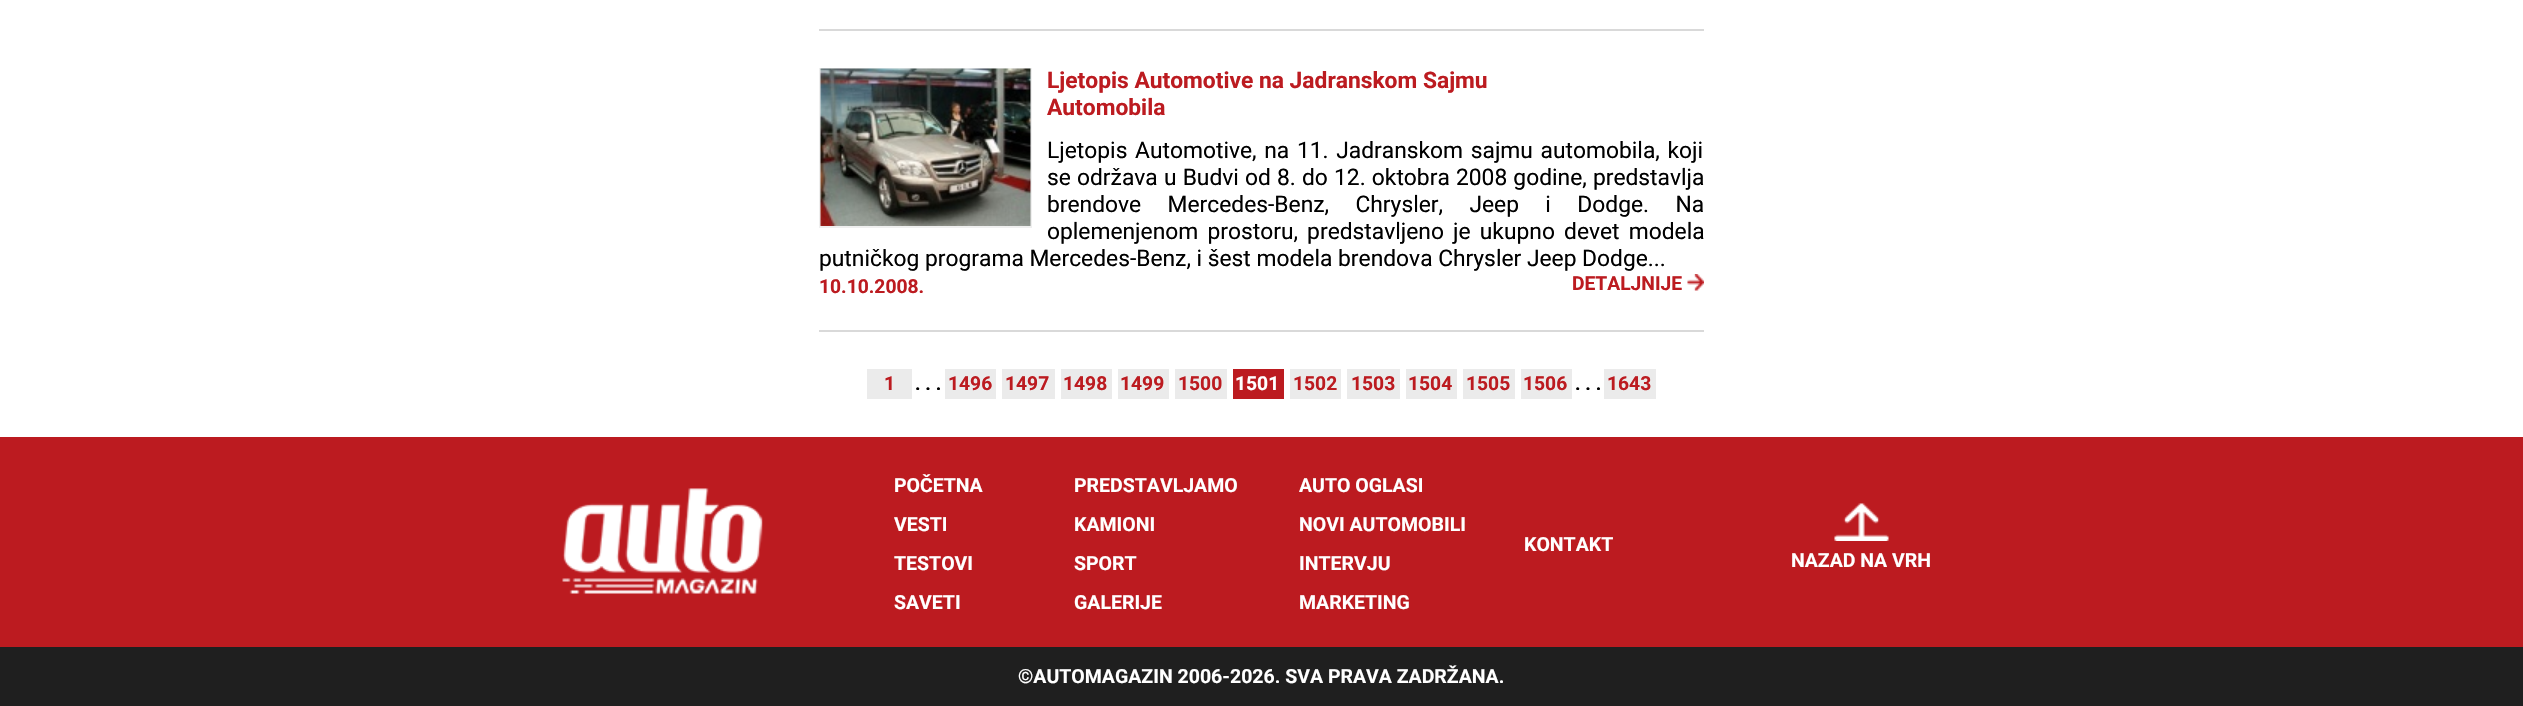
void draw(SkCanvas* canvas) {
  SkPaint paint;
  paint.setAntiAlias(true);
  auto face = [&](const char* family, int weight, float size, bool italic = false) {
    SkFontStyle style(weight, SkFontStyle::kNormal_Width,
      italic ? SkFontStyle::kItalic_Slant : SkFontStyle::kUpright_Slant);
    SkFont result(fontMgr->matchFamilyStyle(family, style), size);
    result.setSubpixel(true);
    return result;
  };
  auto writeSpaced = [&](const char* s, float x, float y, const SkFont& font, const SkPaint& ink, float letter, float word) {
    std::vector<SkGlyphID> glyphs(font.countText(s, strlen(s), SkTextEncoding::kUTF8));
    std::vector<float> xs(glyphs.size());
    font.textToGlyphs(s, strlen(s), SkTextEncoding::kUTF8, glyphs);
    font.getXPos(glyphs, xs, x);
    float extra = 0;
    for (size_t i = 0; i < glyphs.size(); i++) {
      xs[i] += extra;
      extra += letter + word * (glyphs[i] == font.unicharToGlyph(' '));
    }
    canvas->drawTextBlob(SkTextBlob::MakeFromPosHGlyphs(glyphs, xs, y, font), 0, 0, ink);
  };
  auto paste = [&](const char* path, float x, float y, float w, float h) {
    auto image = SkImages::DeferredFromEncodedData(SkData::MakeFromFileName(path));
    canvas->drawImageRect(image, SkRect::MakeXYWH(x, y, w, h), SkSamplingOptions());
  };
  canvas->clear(0xffffffff);
  paint.setColor(0xffd9d9d9);
  canvas->drawRect(SkRect::MakeXYWH(819, 29, 885, 2), paint);
  canvas->drawRect(SkRect::MakeXYWH(819, 330, 885, 2), paint);
  paint.setStroke(true);
  paint.setStrokeWidth(2);
  paint.setColor(0xffefefef);
  canvas->drawRect(SkRect::MakeXYWH(820, 69, 211, 158), paint);
  paste("img/1.png", 820, 68, 211, 158);
  paste("img/2.png", 1687, 274, 17, 17);
  paint.setStroke(false);
  {
    const struct { float x, y, w, h; SkColor color; } items[] = {
      {867, 369, 45, 30, 0xffebebeb},
      {945, 369, 51, 30, 0xffebebeb},
      {1002, 369, 53, 30, 0xffebebeb},
      {1061, 369, 51, 30, 0xffebebeb},
      {1118, 369, 51, 30, 0xffebebeb},
      {1175, 369, 52, 30, 0xffebebeb},
      {1233, 369, 51, 30, 0xffbc1b20},
      {1290, 369, 51, 30, 0xffebebeb},
      {1347, 369, 53, 30, 0xffebebeb},
      {1406, 369, 51, 30, 0xffebebeb},
      {1463, 369, 52, 30, 0xffebebeb},
      {1521, 369, 51, 30, 0xffebebeb},
      {1604, 369, 52, 30, 0xffebebeb},
      {0, 437, 2523, 210, 0xffbc1b20},
    };
    for (auto [x, y, w, h, color] : items) {
      paint.setColor(color);
      canvas->drawRect(SkRect::MakeXYWH(x, y, w, h), paint);
    }
  }
  paste("img/3.png", 562, 488, 201, 106);
  paste("img/4.png", 1834, 503, 55, 38);
  paint.setColor(0xff1f1f1f);
  canvas->drawRect(SkRect::MakeXYWH(0, 647, 2523, 59), paint);
  auto f0 = face("Roboto", 700, 22.8f);
  paint.setColor(0xffbc1b20);
  canvas->drawString("Ljetopis Automotive na Jadranskom Sajmu", 1047, 88, f0, paint);
  canvas->drawString("Automobila", 1047, 115, f0, paint);
  auto f1 = face("Roboto", 400, 22.8f);
  paint.setColor(0xff000000);
  writeSpaced("Ljetopis Automotive, na 11. Jadranskom sajmu automobila, koji", 1047, 158, f1, paint, 0, 2);
  writeSpaced("se održava u Budvi od 8. do 12. oktobra 2008 godine, predstavlja", 1047, 185, f1, paint, 0, 0.5f);
  writeSpaced("brendove Mercedes-Benz, Chrysler, Jeep i Dodge. Na", 1047, 212, f1, paint, 0, 20.75f);
  writeSpaced("oplemenjenom prostoru, predstavljeno je ukupno devet modela", 1047, 239, f1, paint, 0, 3.5f);
  canvas->drawString("putničkog programa Mercedes-Benz, i šest modela brendova Chrysler Jeep Dodge...", 819, 266, f1, paint);
  auto f2 = face("Roboto", 700, 19.25f);
  paint.setColor(0xffbc1b20);
  {
    const struct { const char* s; float x, y; } items[] = {
      {"10.10.2008.", 819, 293},
      {"DETALJNIJE", 1572, 290},
      {"1", 884, 390},
    };
    for (auto [s, x, y] : items) {
      canvas->drawString(s, x, y, f2, paint);
    }
  }
  paint.setColor(0xff000000);
  canvas->drawString(". . .", 915, 390, f2, paint);
  paint.setColor(0xffbc1b20);
  {
    const struct { const char* s; float x, y; } items[] = {
      {"1496", 948, 390},
      {"1497", 1005, 390},
      {"1498", 1063, 390},
      {"1499", 1120, 390},
      {"1500", 1178, 390},
    };
    for (auto [s, x, y] : items) {
      canvas->drawString(s, x, y, f2, paint);
    }
  }
  paint.setColor(0xffffffff);
  canvas->drawString("1501", 1235, 390, f2, paint);
  paint.setColor(0xffbc1b20);
  {
    const struct { const char* s; float x, y; } items[] = {
      {"1502", 1293, 390},
      {"1503", 1351, 390},
      {"1504", 1408, 390},
      {"1505", 1466, 390},
      {"1506", 1523, 390},
    };
    for (auto [s, x, y] : items) {
      canvas->drawString(s, x, y, f2, paint);
    }
  }
  paint.setColor(0xff000000);
  canvas->drawString(". . .", 1575, 390, f2, paint);
  paint.setColor(0xffbc1b20);
  canvas->drawString("1643", 1607, 390, f2, paint);
  auto f3 = face("Roboto", 700, 19.5f);
  paint.setColor(0xffffffff);
  {
    const struct { const char* s; float x, y; } items[] = {
      {"POČETNA", 894, 492},
      {"VESTI", 894, 531},
      {"TESTOVI", 894, 570},
      {"SAVETI", 894, 609},
      {"PREDSTAVLJAMO", 1074, 492},
      {"KAMIONI", 1074, 531},
      {"SPORT", 1074, 570},
      {"GALERIJE", 1074, 609},
      {"AUTO OGLASI", 1299, 492},
      {"NOVI AUTOMOBILI", 1299, 531},
      {"INTERVJU", 1299, 570},
      {"MARKETING", 1299, 609},
      {"KONTAKT", 1524, 551},
      {"NAZAD NA VRH", 1791, 567},
      {"©AUTOMAGAZIN 2006-2026. SVA PRAVA ZADRŽANA.", 1018, 683},
    };
    for (auto [s, x, y] : items) {
      canvas->drawString(s, x, y, f3, paint);
    }
  }
}
